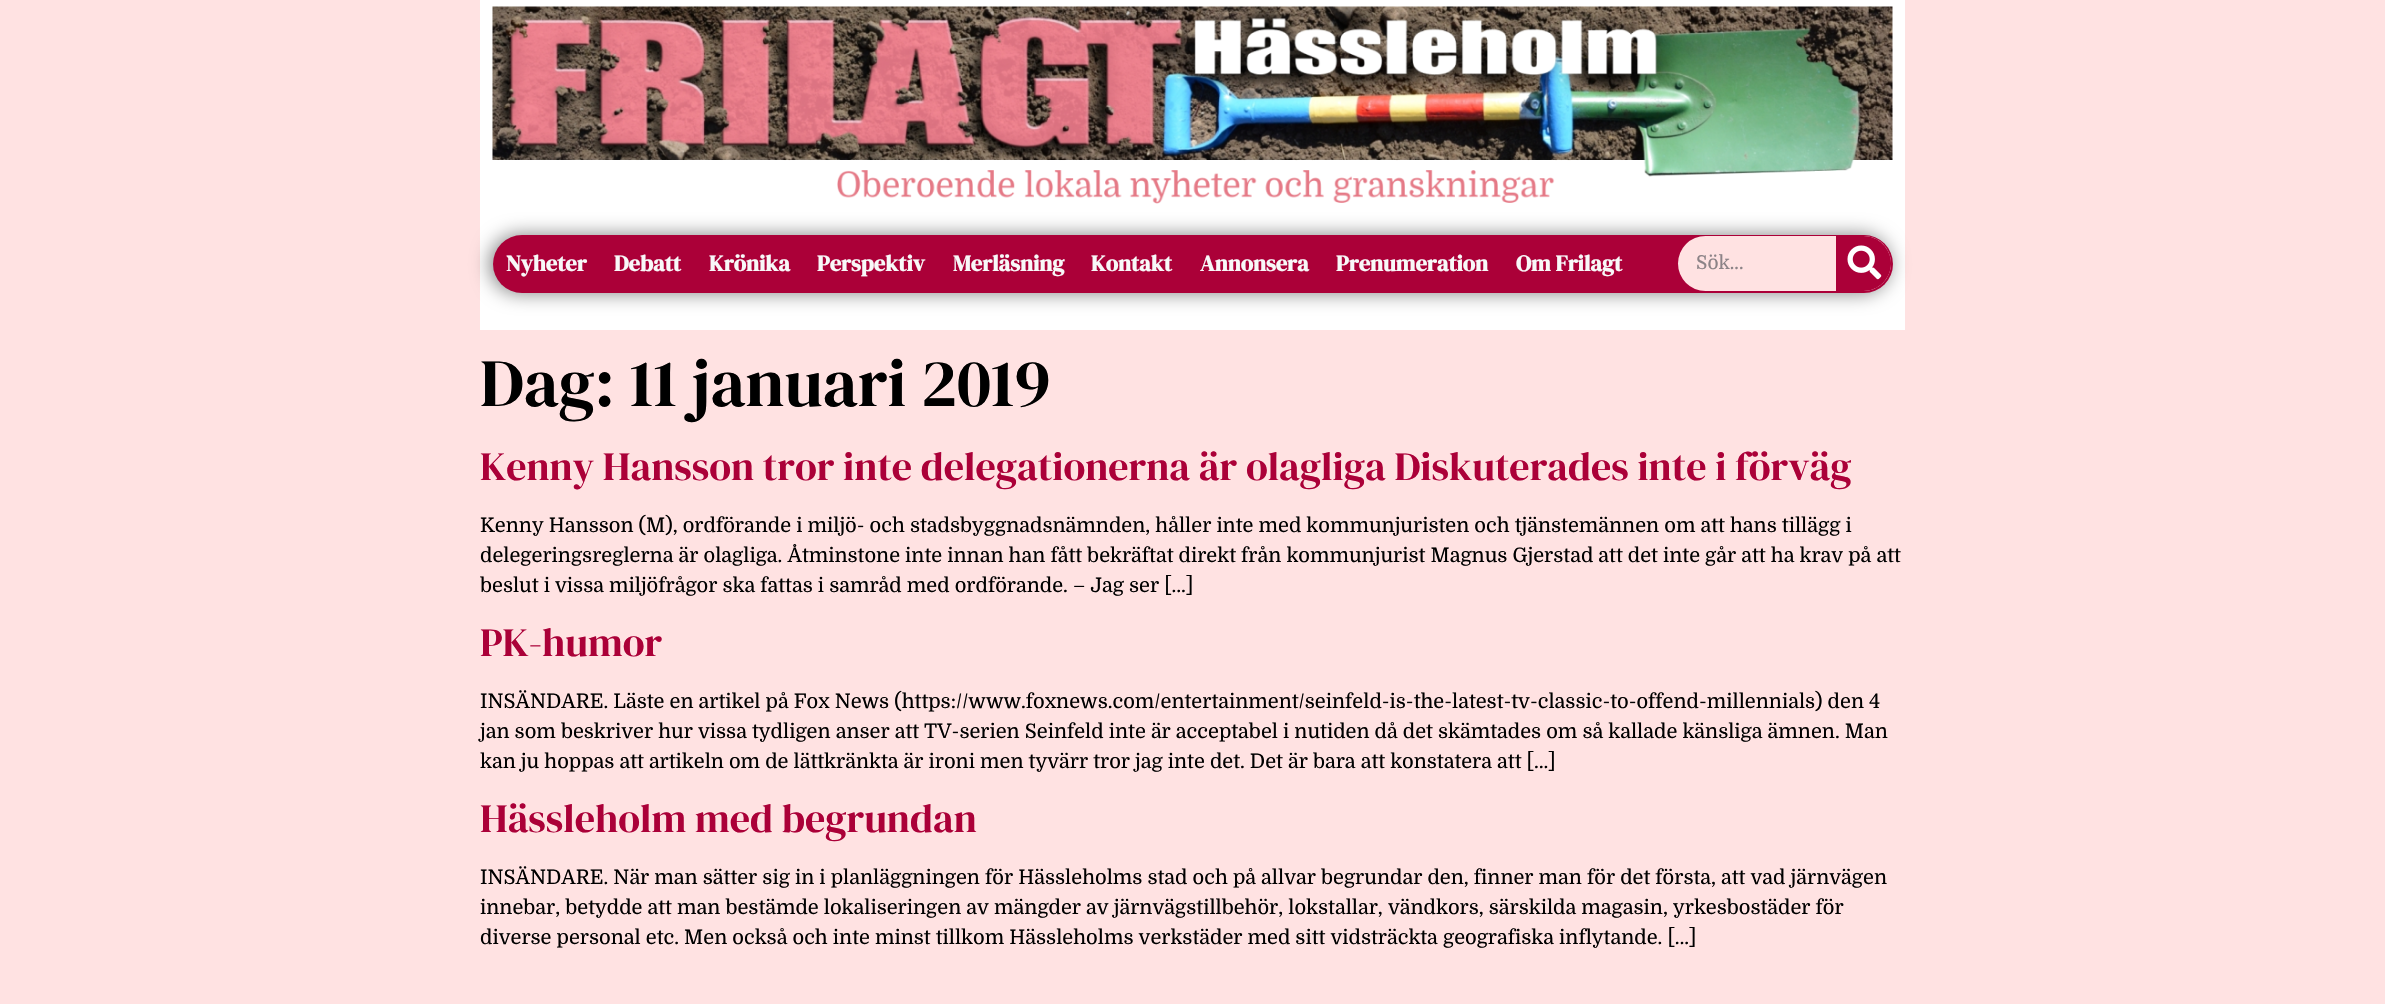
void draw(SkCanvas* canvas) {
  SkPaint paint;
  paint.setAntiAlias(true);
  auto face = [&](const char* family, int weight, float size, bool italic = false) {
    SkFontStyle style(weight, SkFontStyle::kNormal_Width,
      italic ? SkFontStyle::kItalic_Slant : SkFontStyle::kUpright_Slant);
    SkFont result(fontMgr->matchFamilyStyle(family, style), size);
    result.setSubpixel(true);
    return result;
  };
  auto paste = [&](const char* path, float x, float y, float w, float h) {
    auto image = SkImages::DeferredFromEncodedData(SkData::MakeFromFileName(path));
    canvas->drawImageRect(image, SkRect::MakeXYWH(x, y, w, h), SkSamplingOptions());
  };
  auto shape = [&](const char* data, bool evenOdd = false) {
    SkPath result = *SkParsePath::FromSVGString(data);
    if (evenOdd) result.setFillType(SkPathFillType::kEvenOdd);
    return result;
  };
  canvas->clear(0xffffe2e2);
  paint.setColor(0xffffffff);
  canvas->drawRect(SkRect::MakeXYWH(480, 0, 1425, 330), paint);
  paste("img/1.png", 492, 6, 1401, 198);
  paint.setColor(0x80000000);
  paint.setMaskFilter(SkMaskFilter::MakeBlur(kNormal_SkBlurStyle, 9.5f));
  canvas->drawRoundRect(SkRect::MakeXYWH(490, 235, 1400, 58), 29, 29, paint);
  paint.setMaskFilter(nullptr);
  paint.setColor(0xffab0038);
  canvas->drawRoundRect(SkRect::MakeXYWH(493, 235, 1400, 58), 29, 29, paint);
  paint.setColor(0xffffe2e2);
  canvas->drawRoundRect(SkRect::MakeXYWH(1678, 236, 213, 55), 27.5f, 27.5f, paint);
  paint.setColor(0xffab0038);
  canvas->drawPath(shape("M1836 236H1863.5C1878.5 236 1891 248.5 1891 263.5C1891 278.5 1878.5 291 1863.5 291H1836Z"), paint);
  paste("img/2.png", 1847, 245, 35, 35);
  auto f0 = face("DM Serif Display", 700, 22.5f);
  paint.setColor(0xfff8f8f8);
  {
    const struct { const char* s; float x, y; } items[] = {
      {"Nyheter", 506, 271},
      {"Debatt", 614, 271},
      {"Krönika", 709, 271},
      {"Perspektiv", 817, 271},
      {"Merläsning", 953, 271},
      {"Kontakt", 1091, 271},
      {"Annonsera", 1200, 271},
      {"Prenumeration", 1336, 271},
      {"Om Frilagt", 1516, 271},
    };
    for (auto [s, x, y] : items) {
      canvas->drawString(s, x, y, f0, paint);
    }
  }
  auto f1 = face("Domine", 400, 19);
  paint.setColor(0xff8c8387);
  canvas->drawString("Sök...", 1696, 269, f1, paint);
  auto f2 = face("DM Serif Display", 400, 67.5f);
  paint.setColor(0xff000000);
  canvas->drawString("Dag: 11 januari 2019", 480, 406, f2, paint);
  auto f3 = face("DM Serif Display", 400, 40);
  paint.setColor(0xffab0038);
  canvas->drawString("Kenny Hansson tror inte delegationerna är olagliga Diskuterades inte i förväg", 480, 480, f3, paint);
  auto f4 = face("Domine", 400, 20);
  paint.setColor(0xff000000);
  {
    const struct { const char* s; float x, y; } items[] = {
      {"Kenny Hansson (M), ordförande i miljö- och stadsbyggnadsnämnden, håller inte med kommunjuristen och tjänstemännen om att hans tillägg i", 480, 532},
      {"delegeringsreglerna är olagliga. Åtminstone inte innan han fått bekräftat direkt från kommunjurist Magnus Gjerstad att det inte går att ha krav på att", 480, 562},
      {"beslut i vissa miljöfrågor ska fattas i samråd med ordförande. – Jag ser […]", 480, 592},
    };
    for (auto [s, x, y] : items) {
      canvas->drawString(s, x, y, f4, paint);
    }
  }
  paint.setColor(0xffab0038);
  canvas->drawString("PK-humor", 480, 656, f3, paint);
  paint.setColor(0xff000000);
  {
    const struct { const char* s; float x, y; } items[] = {
      {"INSÄNDARE. Läste en artikel på Fox News (https://www.foxnews.com/entertainment/seinfeld-is-the-latest-tv-classic-to-offend-millennials) den 4", 480, 708},
      {"jan som beskriver hur vissa tydligen anser att TV-serien Seinfeld inte är acceptabel i nutiden då det skämtades om så kallade känsliga ämnen. Man", 480, 738},
      {"kan ju hoppas att artikeln om de lättkränkta är ironi men tyvärr tror jag inte det. Det är bara att konstatera att […]", 480, 768},
    };
    for (auto [s, x, y] : items) {
      canvas->drawString(s, x, y, f4, paint);
    }
  }
  paint.setColor(0xffab0038);
  canvas->drawString("Hässleholm med begrundan", 480, 832, f3, paint);
  paint.setColor(0xff000000);
  {
    const struct { const char* s; float x, y; } items[] = {
      {"INSÄNDARE. När man sätter sig in i planläggningen för Hässleholms stad och på allvar begrundar den, finner man för det första, att vad järnvägen", 480, 884},
      {"innebar, betydde att man bestämde lokaliseringen av mängder av järnvägstillbehör, lokstallar, vändkors, särskilda magasin, yrkesbostäder för", 480, 914},
      {"diverse personal etc. Men också och inte minst tillkom Hässleholms verkstäder med sitt vidsträckta geografiska inflytande. […]", 480, 944},
    };
    for (auto [s, x, y] : items) {
      canvas->drawString(s, x, y, f4, paint);
    }
  }
}
